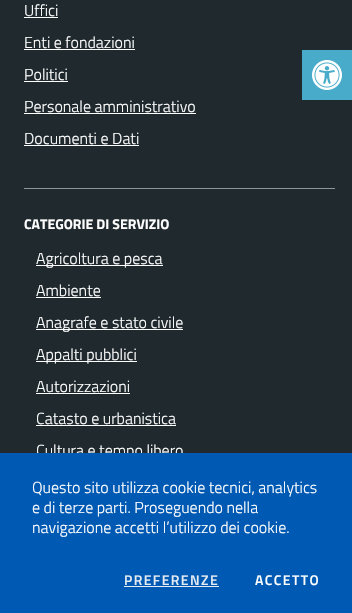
void draw(SkCanvas* canvas) {
  SkPaint paint;
  paint.setAntiAlias(true);
  auto face = [&](const char* family, int weight, float size, bool italic = false) {
    SkFontStyle style(weight, SkFontStyle::kNormal_Width,
      italic ? SkFontStyle::kItalic_Slant : SkFontStyle::kUpright_Slant);
    SkFont result(fontMgr->matchFamilyStyle(family, style), size);
    result.setSubpixel(true);
    return result;
  };
  auto writeSpaced = [&](const char* s, float x, float y, const SkFont& font, const SkPaint& ink, float letter, float word) {
    std::vector<SkGlyphID> glyphs(font.countText(s, strlen(s), SkTextEncoding::kUTF8));
    std::vector<float> xs(glyphs.size());
    font.textToGlyphs(s, strlen(s), SkTextEncoding::kUTF8, glyphs);
    font.getXPos(glyphs, xs, x);
    float extra = 0;
    for (size_t i = 0; i < glyphs.size(); i++) {
      xs[i] += extra;
      extra += letter + word * (glyphs[i] == font.unicharToGlyph(' '));
    }
    canvas->drawTextBlob(SkTextBlob::MakeFromPosHGlyphs(glyphs, xs, y, font), 0, 0, ink);
  };
  auto paste = [&](const char* path, float x, float y, float w, float h) {
    auto image = SkImages::DeferredFromEncodedData(SkData::MakeFromFileName(path));
    canvas->drawImageRect(image, SkRect::MakeXYWH(x, y, w, h), SkSamplingOptions());
  };
  canvas->clear(0xff202a2e);
  {
    const struct { float x, y, w, h; SkColor color; } items[] = {
      {24, 17, 34, 1, 0xffffffff},
      {24, 49, 111, 1, 0xffffffff},
      {24, 81, 44, 1, 0xffffffff},
      {24, 113, 172, 1, 0xffffffff},
      {24, 145, 115, 1, 0xffffffff},
      {24, 188, 311, 1, 0xff909597},
      {36, 265, 127, 1, 0xffffffff},
      {36, 297, 65, 1, 0xffffffff},
      {36, 329, 147, 1, 0xffffffff},
      {36, 361, 101, 1, 0xffffffff},
      {36, 393, 94, 1, 0xffffffff},
      {36, 425, 140, 1, 0xffffffff},
      {302, 50, 50, 50, 0xff48abc9},
    };
    for (auto [x, y, w, h, color] : items) {
      paint.setColor(color);
      canvas->drawRect(SkRect::MakeXYWH(x, y, w, h), paint);
    }
  }
  paste("img/1.png", 312, 60, 30, 30);
  auto f0 = face("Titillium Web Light", 300, 16);
  paint.setColor(0xffffffff);
  {
    const struct { const char* s; float x, y; } items[] = {
      {"Uffici", 24, 16},
      {"Enti e fondazioni", 24, 48},
      {"Politici", 24, 80},
      {"Personale amministrativo", 24, 112},
      {"Documenti e Dati", 24, 144},
    };
    for (auto [s, x, y] : items) {
      canvas->drawString(s, x, y, f0, paint);
    }
  }
  auto f1 = face("Titillium Web", 700, 14);
  canvas->drawString("CATEGORIE DI SERVIZIO", 24, 229, f1, paint);
  {
    const struct { const char* s; float x, y; } items[] = {
      {"Agricoltura e pesca", 36, 264},
      {"Ambiente", 36, 296},
      {"Anagrafe e stato civile", 36, 328},
      {"Appalti pubblici", 36, 360},
      {"Autorizzazioni", 36, 392},
      {"Catasto e urbanistica", 36, 424},
      {"Cultura e tempo libero", 36, 456},
    };
    for (auto [s, x, y] : items) {
      canvas->drawString(s, x, y, f0, paint);
    }
  }
  paint.setColor(0xff0059b3);
  canvas->drawRect(SkRect::MakeXYWH(0, 453, 352, 160), paint);
  paint.setColor(0xffffffff);
  {
    const struct { const char* s; float x, y; } items[] = {
      {"Questo sito utilizza cookie tecnici, analytics", 32, 493},
      {"e di terze parti. Proseguendo nella", 32, 513},
      {"navigazione accetti l’utilizzo dei cookie.", 32, 533},
    };
    for (auto [s, x, y] : items) {
      canvas->drawString(s, x, y, f0, paint);
    }
  }
  auto f2 = face("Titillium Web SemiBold", 600, 14);
  paint.setColor(0xffe6ecf2);
  writeSpaced("PREFERENZE", 124, 585, f2, paint, 1.4f, 0);
  canvas->drawRect(SkRect::MakeXYWH(124, 586, 95, 1), paint);
  paint.setColor(0xffffffff);
  writeSpaced("ACCETTO", 255, 585, f2, paint, 1.4f, 0);
}
